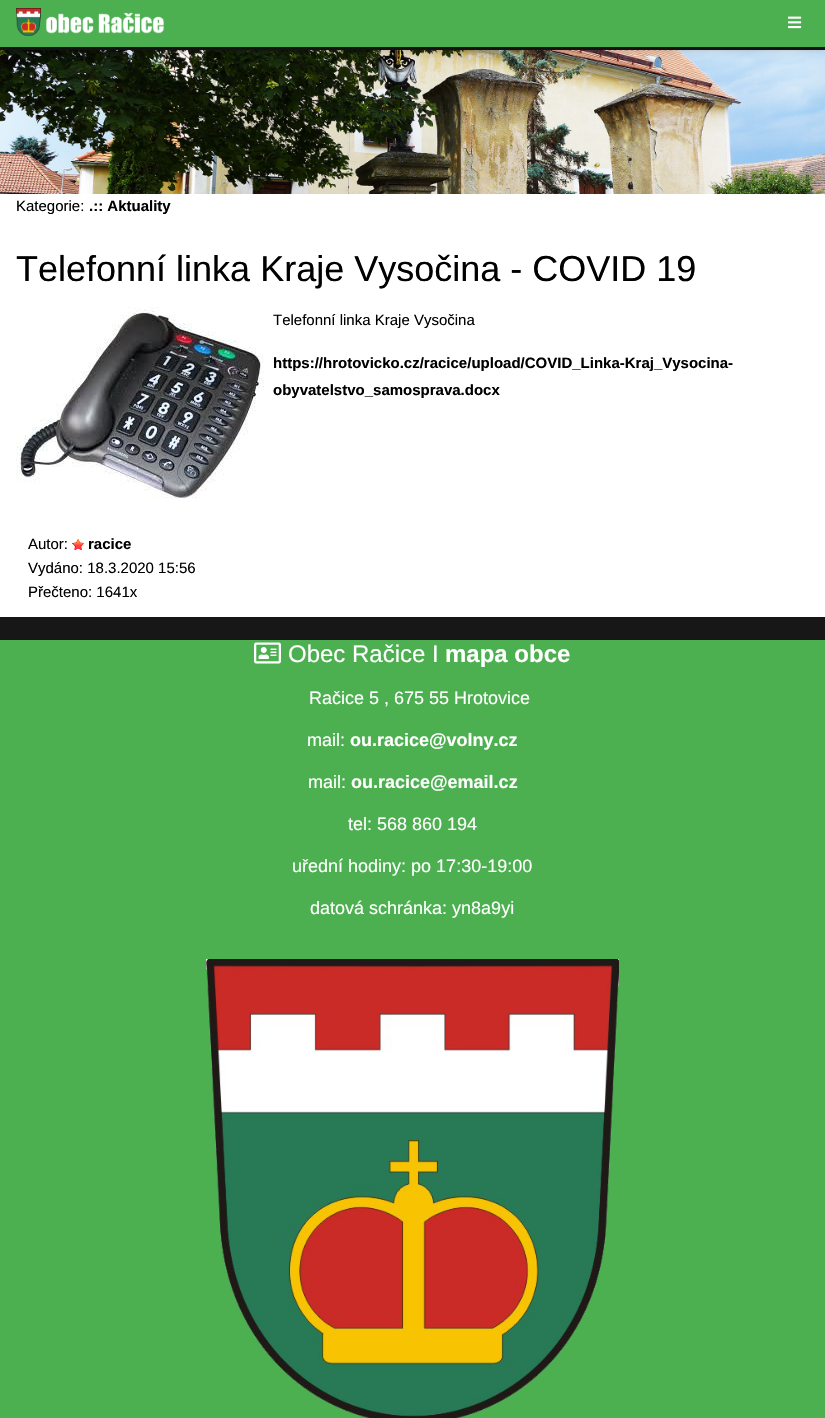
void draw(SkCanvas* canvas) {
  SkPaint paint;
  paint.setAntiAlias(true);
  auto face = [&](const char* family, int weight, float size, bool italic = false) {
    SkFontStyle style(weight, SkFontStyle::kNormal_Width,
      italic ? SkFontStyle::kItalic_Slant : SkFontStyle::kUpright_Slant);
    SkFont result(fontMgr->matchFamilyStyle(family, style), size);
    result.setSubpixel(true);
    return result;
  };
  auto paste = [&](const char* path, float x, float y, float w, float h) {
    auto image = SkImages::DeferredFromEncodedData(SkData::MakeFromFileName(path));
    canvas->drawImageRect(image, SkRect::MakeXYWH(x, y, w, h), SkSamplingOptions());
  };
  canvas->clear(0xff171717);
  paste("img/3.png", 0, 50, 825, 144);
  paint.setColor(0x1f000000);
  paint.setMaskFilter(SkMaskFilter::MakeBlur(kNormal_SkBlurStyle, 5));
  canvas->drawRect(SkRect::MakeXYWH(0, 2, 825, 47), paint);
  paint.setMaskFilter(nullptr);
  paint.setColor(0x29000000);
  paint.setMaskFilter(SkMaskFilter::MakeBlur(kNormal_SkBlurStyle, 2.5f));
  canvas->drawRect(SkRect::MakeXYWH(0, 2, 825, 47), paint);
  paint.setMaskFilter(nullptr);
  paint.setColor(0xff4caf50);
  canvas->drawRect(SkRect::MakeXYWH(0, 0, 825, 47), paint);
  paste("img/1.png", 16, 8, 149, 28);
  paste("img/2.png", 788, 16, 14, 13);
  paint.setColor(0xffffffff);
  canvas->drawRect(SkRect::MakeXYWH(0, 194, 825, 423), paint);
  paste("img/4.png", 16, 307, 248, 192);
  paste("img/5.png", 72, 539, 12, 12);
  paint.setColor(0xff4caf50);
  canvas->drawRect(SkRect::MakeXYWH(0, 640, 825, 778), paint);
  paste("img/6.png", 254, 642, 27, 22);
  paste("img/7.png", 206, 959, 413, 459);
  auto f0 = face("Liberation Sans", 400, 15);
  paint.setColor(0xff000000);
  canvas->drawString("Kategorie:", 16, 211, f0, paint);
  auto f1 = face("Liberation Sans", 700, 15);
  canvas->drawString(".:: Aktuality", 89, 211, f1, paint);
  auto f2 = face("Liberation Sans", 400, 36);
  canvas->drawString("Telefonní linka Kraje Vysočina - COVID 19", 16, 281, f2, paint);
  canvas->drawString("Telefonní linka Kraje Vysočina", 273, 325, f0, paint);
  canvas->drawString("https://hrotovicko.cz/racice/upload/COVID_Linka-Kraj_Vysocina-", 273, 368, f1, paint);
  canvas->drawString("obyvatelstvo_samosprava.docx", 273, 395, f1, paint);
  canvas->drawString("Autor:", 28, 549, f0, paint);
  canvas->drawString("racice", 88, 549, f1, paint);
  canvas->drawString("Vydáno: 18.3.2020 15:56", 28, 573, f0, paint);
  canvas->drawString("Přečteno: 1641x", 28, 597, f0, paint);
  auto f3 = face("Liberation Sans", 400, 24);
  paint.setColor(0xffffffff);
  canvas->drawString("Obec Račice I", 288, 662, f3, paint);
  auto f4 = face("Liberation Sans", 700, 24);
  canvas->drawString("mapa obce", 445, 662, f4, paint);
  auto f5 = face("Liberation Sans", 400, 18);
  canvas->drawString("Račice 5 , 675 55 Hrotovice", 309, 704, f5, paint);
  canvas->drawString("mail:", 307, 746, f5, paint);
  auto f6 = face("Liberation Sans", 700, 18);
  canvas->drawString("ou.racice@volny.cz", 350, 746, f6, paint);
  canvas->drawString("mail:", 308, 788, f5, paint);
  canvas->drawString("ou.racice@email.cz", 351, 788, f6, paint);
  {
    const struct { const char* s; float x, y; } items[] = {
      {"tel: 568 860 194", 348, 830},
      {"uřední hodiny: po 17:30-19:00", 292, 872},
      {"datová schránka: yn8a9yi", 310, 914},
    };
    for (auto [s, x, y] : items) {
      canvas->drawString(s, x, y, f5, paint);
    }
  }
}
